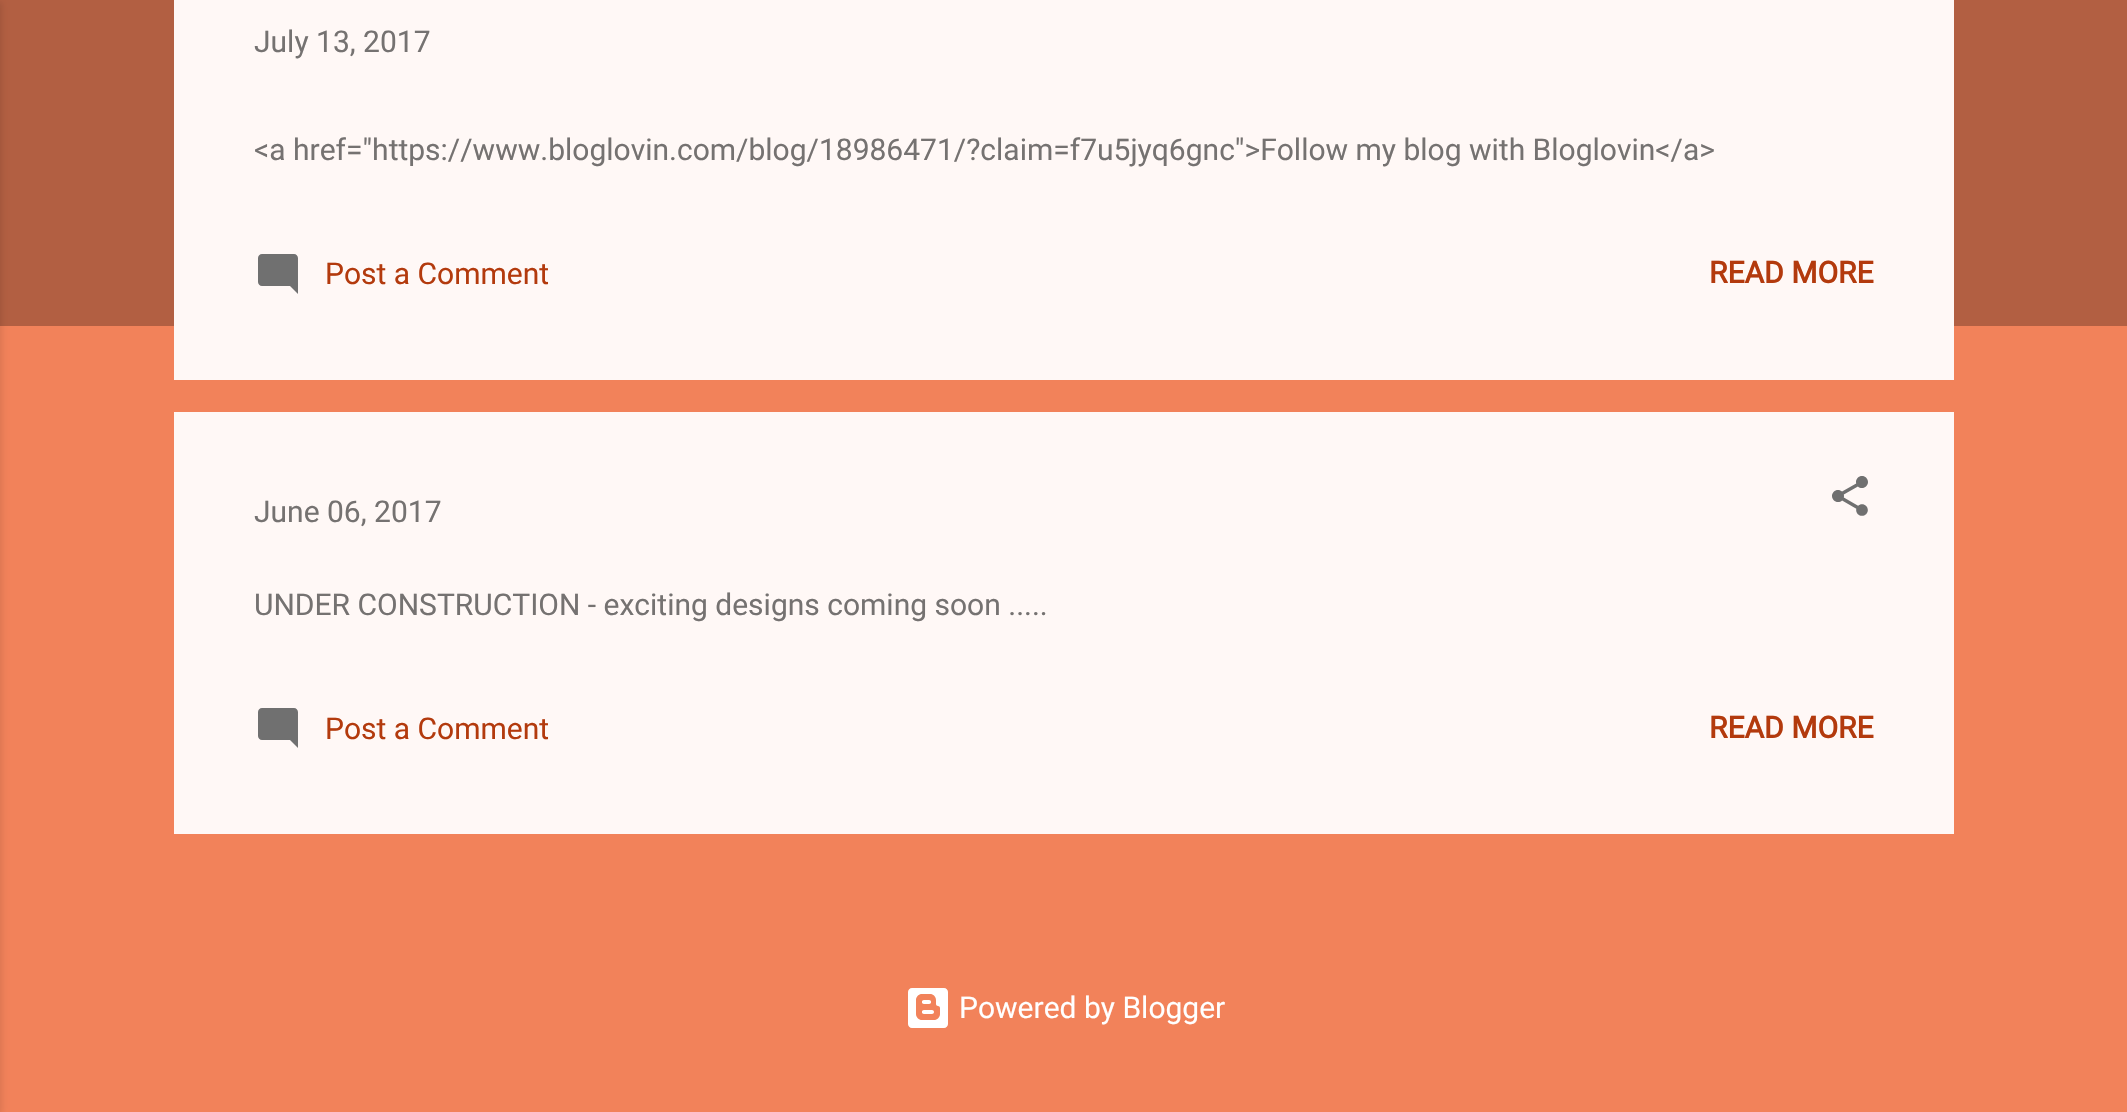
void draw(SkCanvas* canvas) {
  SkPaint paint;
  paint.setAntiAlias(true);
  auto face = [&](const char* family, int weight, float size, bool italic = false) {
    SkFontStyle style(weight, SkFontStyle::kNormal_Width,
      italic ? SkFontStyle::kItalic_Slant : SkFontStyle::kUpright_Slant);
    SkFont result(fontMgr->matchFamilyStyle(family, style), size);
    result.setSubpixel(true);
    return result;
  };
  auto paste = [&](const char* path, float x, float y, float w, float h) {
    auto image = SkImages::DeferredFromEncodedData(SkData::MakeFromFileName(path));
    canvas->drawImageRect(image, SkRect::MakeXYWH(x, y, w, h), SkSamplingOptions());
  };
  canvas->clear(0xfff2825a);
  paint.setColor(0xffb25f42);
  canvas->drawRect(SkRect::MakeXYWH(0, 0, 2127, 326), paint);
  paint.setColor(0x1a000000);
  paint.setMaskFilter(SkMaskFilter::MakeBlur(kNormal_SkBlurStyle, 3));
  canvas->drawRect(SkRect::MakeXYWH(-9, 2, 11, 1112), paint);
  paint.setMaskFilter(nullptr);
  paint.setColor(0xfffff8f6);
  canvas->drawRect(SkRect::MakeXYWH(174, 0, 1780, 380), paint);
  paste("img/1.png", 258, 254, 40, 40);
  canvas->drawRect(SkRect::MakeXYWH(174, 412, 1780, 422), paint);
  paste("img/2.png", 1832, 476, 36, 40);
  paste("img/1.png", 258, 708, 40, 40);
  paste("img/3.png", 908, 988, 40, 40);
  auto f0 = face("Roboto", 400, 30);
  paint.setColor(0xff757271);
  canvas->drawString("July 13, 2017", 254, 52, f0, paint);
  canvas->drawString("<a href=\"https://www.bloglovin.com/blog/18986471/?claim=f7u5jyq6gnc\">Follow my blog with Bloglovin</a>", 254, 160, f0, paint);
  paint.setColor(0xffb33a0d);
  canvas->drawString("Post a Comment", 325, 284, f0, paint);
  auto f1 = face("Roboto", 700, 30);
  canvas->drawString("READ MORE", 1709, 283, f1, paint);
  paint.setColor(0xff757271);
  canvas->drawString("June 06, 2017", 254, 522, f0, paint);
  canvas->drawString("UNDER CONSTRUCTION - exciting designs coming soon .....", 254, 615, f0, paint);
  paint.setColor(0xffb33a0d);
  canvas->drawString("Post a Comment", 325, 739, f0, paint);
  canvas->drawString("READ MORE", 1709, 738, f1, paint);
  paint.setColor(0xffffffff);
  canvas->drawString("Powered by Blogger", 959, 1018, f0, paint);
}
